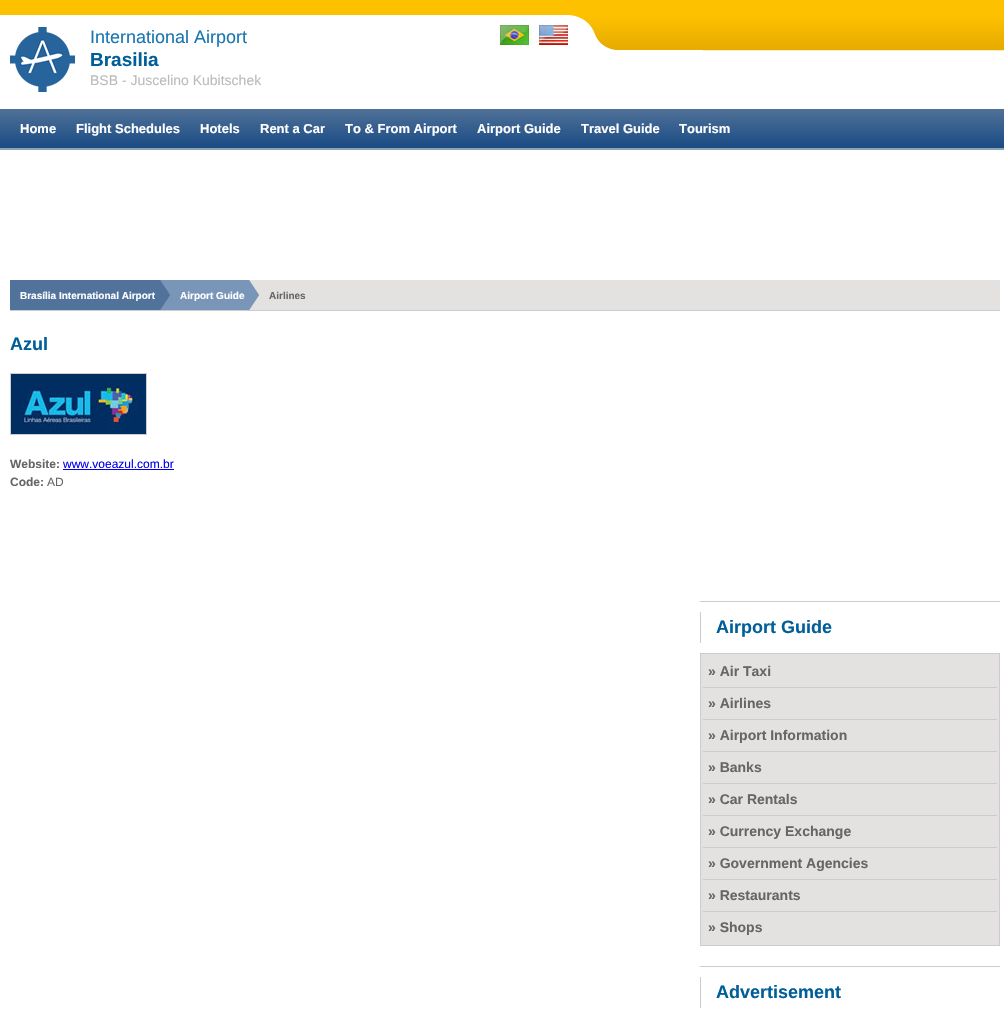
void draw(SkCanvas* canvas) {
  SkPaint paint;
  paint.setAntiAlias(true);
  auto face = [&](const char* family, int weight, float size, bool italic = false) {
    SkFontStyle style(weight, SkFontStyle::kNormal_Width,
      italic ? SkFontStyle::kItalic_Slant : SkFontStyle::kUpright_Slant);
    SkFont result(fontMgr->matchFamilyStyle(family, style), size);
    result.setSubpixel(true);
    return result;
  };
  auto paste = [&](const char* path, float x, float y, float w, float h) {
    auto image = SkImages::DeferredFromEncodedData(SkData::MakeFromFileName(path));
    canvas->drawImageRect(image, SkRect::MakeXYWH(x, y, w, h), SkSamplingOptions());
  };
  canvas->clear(0xffffffff);
  paste("img/1.png", 0, 0, 703, 150);
  paste("img/2.png", 703, 0, 301, 150);
  paste("img/3.png", 570, 15, 50, 35);
  paste("img/4.png", 620, 15, 83, 35);
  paste("img/5.png", 10, 27, 65, 65);
  paste("img/6.png", 500, 25, 29, 20);
  paste("img/7.png", 539, 25, 29, 20);
  {
    const struct { float x, y, w, h; SkColor color; } items[] = {
      {249, 280, 751, 30, 0xffe3e2e0},
      {10, 310, 990, 1, 0xffcccccc},
      {10, 280, 150, 30, 0xff51739b},
      {160, 280, 89, 30, 0xff7996b9},
    };
    for (auto [x, y, w, h, color] : items) {
      paint.setColor(color);
      canvas->drawRect(SkRect::MakeXYWH(x, y, w, h), paint);
    }
  }
  paste("img/8.png", 160, 280, 10, 30);
  paste("img/9.png", 249, 280, 10, 30);
  paint.setStroke(true);
  paint.setStrokeWidth(1);
  paint.setColor(0xffcccccc);
  canvas->drawRect(SkRect::MakeXYWH(10.5f, 373.5f, 136, 61), paint);
  paste("img/10.png", 11, 374, 135, 60);
  paint.setStroke(false);
  {
    const struct { float x, y, w, h; SkColor color; } items[] = {
      {63, 469, 111, 1, 0xff0000ee},
      {700, 601, 300, 1, 0xffcccccc},
      {700, 612, 1, 31, 0xffcccccc},
    };
    for (auto [x, y, w, h, color] : items) {
      paint.setColor(color);
      canvas->drawRect(SkRect::MakeXYWH(x, y, w, h), paint);
    }
  }
  paint.setColor(0xffe3e2e0);
  canvas->drawRect(SkRect::MakeXYWH(700.5f, 653.5f, 299, 292), paint);
  paint.setStroke(true);
  paint.setColor(0xffcccccc);
  canvas->drawRect(SkRect::MakeXYWH(700.5f, 653.5f, 299, 292), paint);
  paint.setStroke(false);
  {
    const struct { float x, y, w, h; SkColor color; } items[] = {
      {703, 687, 294, 1, 0xffcccccc},
      {703, 719, 294, 1, 0xffcccccc},
      {703, 751, 294, 1, 0xffcccccc},
      {703, 783, 294, 1, 0xffcccccc},
      {703, 815, 294, 1, 0xffcccccc},
      {703, 847, 294, 1, 0xffcccccc},
      {703, 879, 294, 1, 0xffcccccc},
      {703, 911, 294, 1, 0xffcccccc},
      {700, 966, 300, 1, 0xffcccccc},
      {700, 977, 1, 31, 0xffcccccc},
    };
    for (auto [x, y, w, h, color] : items) {
      paint.setColor(color);
      canvas->drawRect(SkRect::MakeXYWH(x, y, w, h), paint);
    }
  }
  auto f0 = face("Liberation Sans", 400, 18);
  paint.setColor(0xff1a77b2);
  canvas->drawString("International Airport", 90, 43, f0, paint);
  auto f1 = face("Liberation Sans", 700, 19);
  paint.setColor(0xff005f99);
  canvas->drawString("Brasilia", 90, 66, f1, paint);
  auto f2 = face("Liberation Sans", 400, 14);
  paint.setColor(0xffbbbbbb);
  canvas->drawString("BSB - Juscelino Kubitschek", 90, 85, f2, paint);
  auto f3 = face("Liberation Sans", 700, 13);
  paint.setColor(0xffffffff);
  {
    const struct { const char* s; float x, y; } items[] = {
      {"Home", 20, 133},
      {"Flight Schedules", 76, 133},
      {"Hotels", 200, 133},
      {"Rent a Car", 260, 133},
      {"To & From Airport", 345, 133},
      {"Airport Guide", 477, 133},
      {"Travel Guide", 581, 133},
      {"Tourism", 679, 133},
    };
    for (auto [s, x, y] : items) {
      canvas->drawString(s, x, y, f3, paint);
    }
  }
  auto f4 = face("Liberation Sans", 700, 10);
  canvas->drawString("Brasília International Airport", 20, 299, f4, paint);
  canvas->drawString("Airport Guide", 180, 299, f4, paint);
  paint.setColor(0xff666666);
  canvas->drawString("Airlines", 269, 299, f4, paint);
  auto f5 = face("Liberation Sans", 700, 18);
  paint.setColor(0xff005f99);
  canvas->drawString("Azul", 10, 350, f5, paint);
  auto f6 = face("Liberation Sans", 700, 12);
  paint.setColor(0xff666666);
  canvas->drawString("Website:", 10, 468, f6, paint);
  auto f7 = face("Liberation Sans", 400, 12);
  paint.setColor(0xff0000ee);
  canvas->drawString("www.voeazul.com.br", 63, 468, f7, paint);
  paint.setColor(0xff666666);
  canvas->drawString("Code:", 10, 486, f6, paint);
  canvas->drawString("AD", 47, 486, f7, paint);
  paint.setColor(0xff005f99);
  canvas->drawString("Airport Guide", 716, 633, f5, paint);
  auto f8 = face("Liberation Sans", 700, 14);
  paint.setColor(0xff666666);
  {
    const struct { const char* s; float x, y; } items[] = {
      {"» Air Taxi", 708, 676},
      {"» Airlines", 708, 708},
      {"» Airport Information", 708, 740},
      {"» Banks", 708, 772},
      {"» Car Rentals", 708, 804},
      {"» Currency Exchange", 708, 836},
      {"» Government Agencies", 708, 868},
      {"» Restaurants", 708, 900},
      {"» Shops", 708, 932},
    };
    for (auto [s, x, y] : items) {
      canvas->drawString(s, x, y, f8, paint);
    }
  }
  paint.setColor(0xff005f99);
  canvas->drawString("Advertisement", 716, 998, f5, paint);
}
